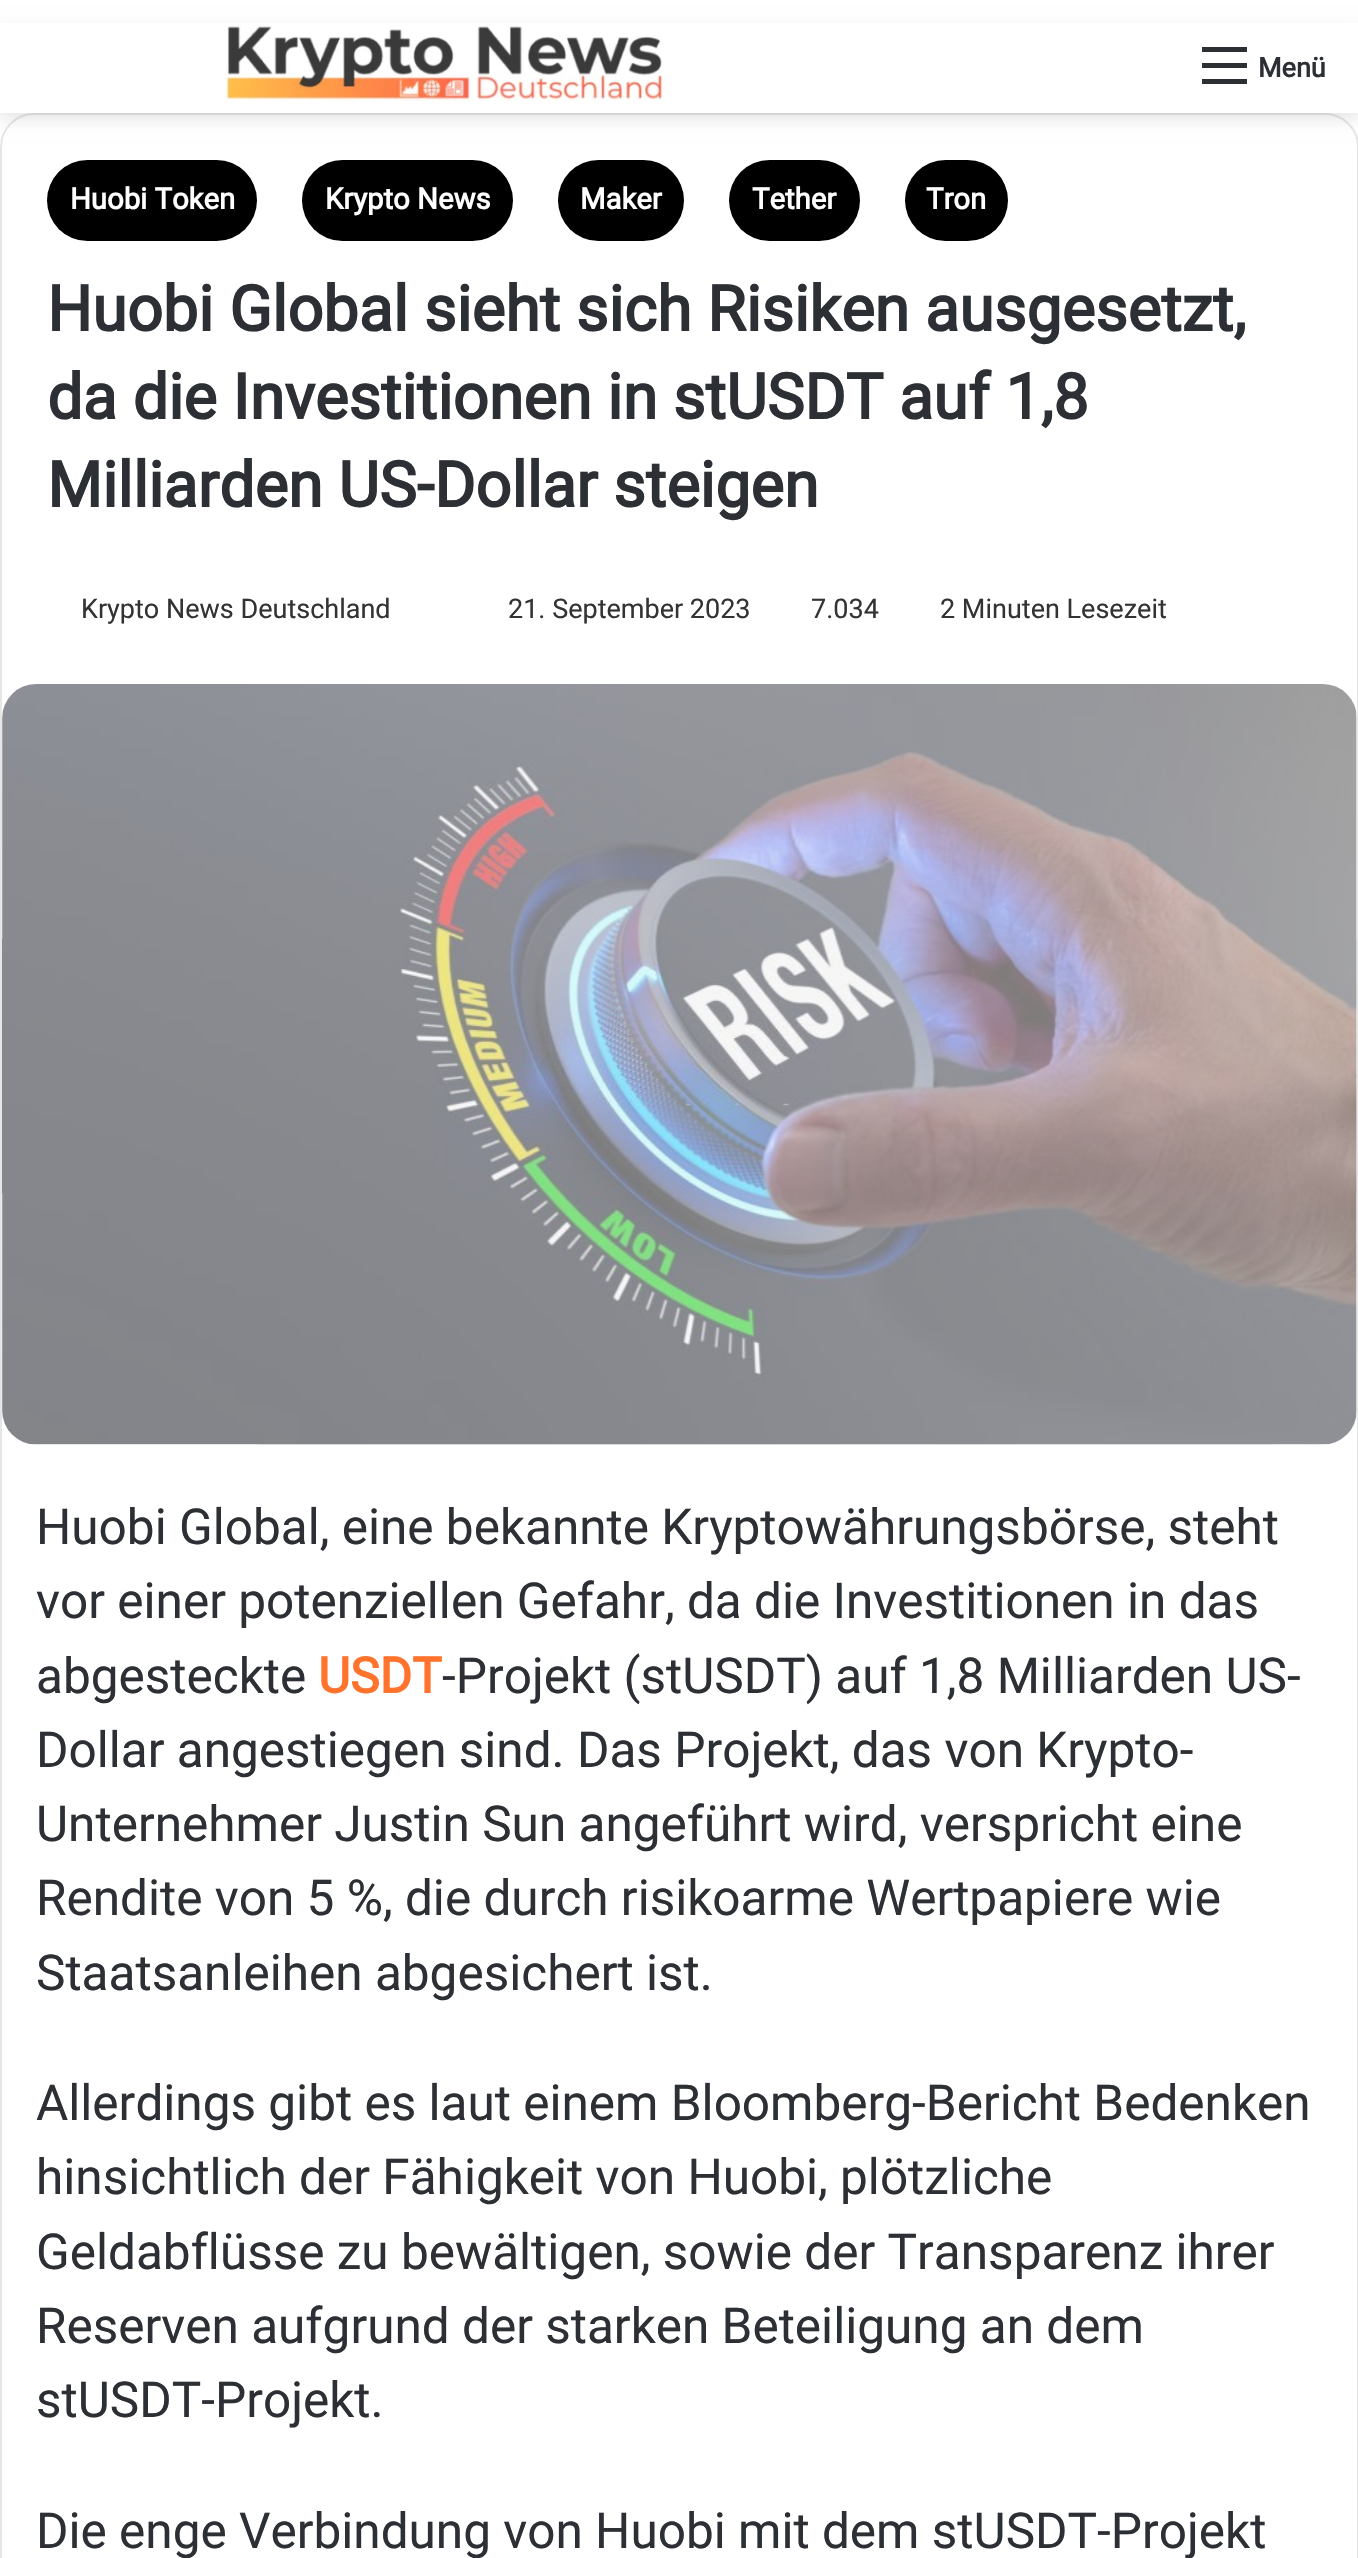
void draw(SkCanvas* canvas) {
  SkPaint paint;
  paint.setAntiAlias(true);
  auto face = [&](const char* family, int weight, float size, bool italic = false) {
    SkFontStyle style(weight, SkFontStyle::kNormal_Width,
      italic ? SkFontStyle::kItalic_Slant : SkFontStyle::kUpright_Slant);
    SkFont result(fontMgr->matchFamilyStyle(family, style), size);
    result.setSubpixel(true);
    return result;
  };
  auto paste = [&](const char* path, float x, float y, float w, float h) {
    auto image = SkImages::DeferredFromEncodedData(SkData::MakeFromFileName(path));
    canvas->drawImageRect(image, SkRect::MakeXYWH(x, y, w, h), SkSamplingOptions());
  };
  canvas->clear(0xffffffff);
  paint.setStroke(true);
  paint.setStrokeWidth(2);
  paint.setColor(0xffe6e6e6);
  canvas->drawRoundRect(SkRect::MakeXYWH(1, 114, 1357, 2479), 33, 33, paint);
  paint.setStroke(false);
  paint.setColor(0x1a000000);
  paint.setMaskFilter(SkMaskFilter::MakeBlur(kNormal_SkBlurStyle, 8));
  canvas->drawRect(SkRect::MakeXYWH(0, 29, 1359, 90), paint);
  paint.setMaskFilter(nullptr);
  paint.setColor(0xffffffff);
  canvas->drawRect(SkRect::MakeXYWH(0, 23, 1358, 90), paint);
  paste("img/1.png", 225, 25, 439, 77);
  {
    const struct { float x, y, w, h; SkColor color; } items[] = {
      {1202, 63, 45, 5, 0xff2c2f34},
      {1202, 47, 45, 5, 0xff2c2f34},
      {1202, 79, 45, 5, 0xff2c2f34},
    };
    for (auto [x, y, w, h, color] : items) {
      paint.setColor(color);
      canvas->drawRect(SkRect::MakeXYWH(x, y, w, h), paint);
    }
  }
  paint.setColor(0xff000000);
  canvas->drawRoundRect(SkRect::MakeXYWH(47, 160, 210, 81), 40.5f, 40.5f, paint);
  canvas->drawRoundRect(SkRect::MakeXYWH(302, 160, 211, 81), 40.5f, 40.5f, paint);
  canvas->drawRoundRect(SkRect::MakeXYWH(558, 160, 126, 81), 40.5f, 40.5f, paint);
  canvas->drawRoundRect(SkRect::MakeXYWH(729, 160, 131, 81), 40.5f, 40.5f, paint);
  canvas->drawRoundRect(SkRect::MakeXYWH(905, 160, 103, 81), 40.5f, 40.5f, paint);
  paint.setColor(0xfff7f7f7);
  canvas->drawRoundRect(SkRect::MakeXYWH(2, 684, 1355, 761), 34, 34, paint);
  paste("img/2.png", 2, 684, 1355, 761);
  auto f0 = face("Roboto", 700, 27);
  paint.setColor(0xff2c2f34);
  canvas->drawString("Menü", 1258, 77, f0, paint);
  auto f1 = face("Roboto", 700, 29.25f);
  paint.setColor(0xffffffff);
  {
    const struct { const char* s; float x, y; } items[] = {
      {"Huobi Token", 70, 209},
      {"Krypto News", 325, 209},
      {"Maker", 580, 209},
      {"Tether", 752, 209},
      {"Tron", 926, 209},
    };
    for (auto [s, x, y] : items) {
      canvas->drawString(s, x, y, f1, paint);
    }
  }
  auto f2 = face("Roboto", 700, 63);
  paint.setColor(0xff2c2f34);
  {
    const struct { const char* s; float x, y; } items[] = {
      {"Huobi Global sieht sich Risiken ausgesetzt,", 47, 331},
      {"da die Investitionen in stUSDT auf 1,8", 47, 419},
      {"Milliarden US-Dollar steigen", 47, 507},
    };
    for (auto [s, x, y] : items) {
      canvas->drawString(s, x, y, f2, paint);
    }
  }
  auto f3 = face("Roboto", 400, 27);
  paint.setColor(0xff333333);
  {
    const struct { const char* s; float x, y; } items[] = {
      {"Krypto News Deutschland", 81, 618},
      {"21. September 2023", 508, 618},
      {"7.034", 811, 618},
      {"2 Minuten Lesezeit", 940, 618},
    };
    for (auto [s, x, y] : items) {
      canvas->drawString(s, x, y, f3, paint);
    }
  }
  auto f4 = face("Roboto", 400, 49.5f);
  paint.setColor(0xff2c2f34);
  {
    const struct { const char* s; float x, y; } items[] = {
      {"Huobi Global, eine bekannte Kryptowährungsbörse, steht", 36, 1544},
      {"vor einer potenziellen Gefahr, da die Investitionen in das", 36, 1618},
      {"abgesteckte", 36, 1693},
    };
    for (auto [s, x, y] : items) {
      canvas->drawString(s, x, y, f4, paint);
    }
  }
  auto f5 = face("Roboto", 700, 49.5f);
  paint.setColor(0xffff732d);
  canvas->drawString("USDT", 318, 1693, f5, paint);
  paint.setColor(0xff2c2f34);
  {
    const struct { const char* s; float x, y; } items[] = {
      {"-Projekt (stUSDT) auf 1,8 Milliarden US-", 442, 1693},
      {"Dollar angestiegen sind. Das Projekt, das von Krypto-", 36, 1767},
      {"Unternehmer Justin Sun angeführt wird, verspricht eine", 36, 1841},
      {"Rendite von 5 %, die durch risikoarme Wertpapiere wie", 36, 1915},
      {"Staatsanleihen abgesichert ist.", 36, 1990},
      {"Allerdings gibt es laut einem Bloomberg-Bericht Bedenken", 36, 2120},
      {"hinsichtlich der Fähigkeit von Huobi, plötzliche", 36, 2194},
      {"Geldabflüsse zu bewältigen, sowie der Transparenz ihrer", 36, 2269},
      {"Reserven aufgrund der starken Beteiligung an dem", 36, 2343},
      {"stUSDT-Projekt.", 36, 2417},
      {"Die enge Verbindung von Huobi mit dem stUSDT-Projekt", 36, 2548},
    };
    for (auto [s, x, y] : items) {
      canvas->drawString(s, x, y, f4, paint);
    }
  }
}
